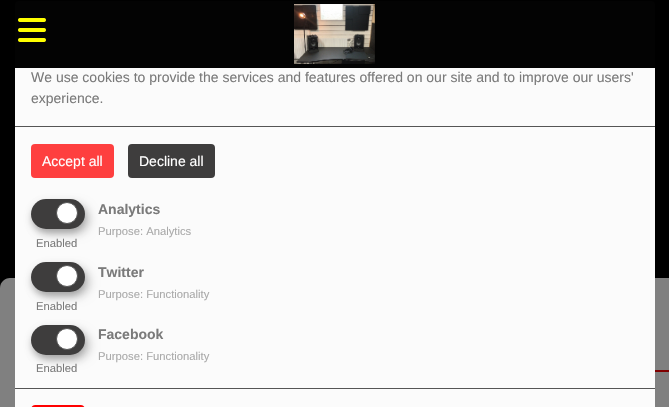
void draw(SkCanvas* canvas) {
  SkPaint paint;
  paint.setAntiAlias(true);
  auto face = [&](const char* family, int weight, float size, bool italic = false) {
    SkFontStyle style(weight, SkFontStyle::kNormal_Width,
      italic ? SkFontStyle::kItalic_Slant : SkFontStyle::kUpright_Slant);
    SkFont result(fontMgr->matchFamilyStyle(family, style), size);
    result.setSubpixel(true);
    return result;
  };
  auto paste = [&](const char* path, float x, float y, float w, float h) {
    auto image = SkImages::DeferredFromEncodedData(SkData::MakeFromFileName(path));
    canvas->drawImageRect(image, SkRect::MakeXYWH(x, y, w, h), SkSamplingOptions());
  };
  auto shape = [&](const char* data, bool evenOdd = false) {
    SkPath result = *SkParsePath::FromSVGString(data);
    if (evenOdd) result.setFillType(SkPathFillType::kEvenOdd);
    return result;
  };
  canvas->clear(0xff000000);
  paint.setColor(0xff808080);
  canvas->drawPath(shape("M10 278H669V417H10C4.5 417 0 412.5 0 407V288C0 282.5 4.5 278 10 278Z"), paint);
  paint.setColor(0xfffbfbfb);
  canvas->drawPath(shape("M19 1H651C653 1 655 3 655 5V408H15V5C15 3 17 1 19 1Z"), paint);
  paint.setColor(0xfc000000);
  canvas->drawRect(SkRect::MakeXYWH(15, 1, 640, 67), paint);
  paste("img/1.png", 18, 18, 28, 24);
  paste("img/2.png", 294, 4, 81, 60);
  paint.setColor(0xff555555);
  canvas->drawRect(SkRect::MakeXYWH(15, 126, 640, 1), paint);
  paint.setColor(0xfffe3f3f);
  canvas->drawRoundRect(SkRect::MakeXYWH(31, 144, 83, 34), 4, 4, paint);
  paint.setColor(0xff3e3d3d);
  canvas->drawRoundRect(SkRect::MakeXYWH(128, 144, 87, 34), 4, 4, paint);
  paint.setColor(0x30000000);
  paint.setMaskFilter(SkMaskFilter::MakeBlur(kNormal_SkBlurStyle, 5));
  canvas->drawRoundRect(SkRect::MakeXYWH(36, 204, 54, 30), 15, 15, paint);
  paint.setMaskFilter(nullptr);
  paint.setColor(0x33000000);
  paint.setMaskFilter(SkMaskFilter::MakeBlur(kNormal_SkBlurStyle, 3));
  canvas->drawRoundRect(SkRect::MakeXYWH(31, 203, 54, 30), 15, 15, paint);
  paint.setMaskFilter(nullptr);
  paint.setColor(0xff3e3d3d);
  canvas->drawRoundRect(SkRect::MakeXYWH(31, 199, 54, 30), 15, 15, paint);
  paint.setColor(0xffffffff);
  canvas->drawCircle(67, 213, 10.5f, paint);
  paint.setStroke(true);
  paint.setStrokeWidth(1);
  paint.setColor(0xff555555);
  canvas->drawCircle(67, 213, 10.5f, paint);
  paint.setStroke(false);
  paint.setColor(0x30000000);
  paint.setMaskFilter(SkMaskFilter::MakeBlur(kNormal_SkBlurStyle, 5));
  canvas->drawRoundRect(SkRect::MakeXYWH(36, 267, 54, 30), 15, 15, paint);
  paint.setMaskFilter(nullptr);
  paint.setColor(0x33000000);
  paint.setMaskFilter(SkMaskFilter::MakeBlur(kNormal_SkBlurStyle, 3));
  canvas->drawRoundRect(SkRect::MakeXYWH(31, 266, 54, 30), 15, 15, paint);
  paint.setMaskFilter(nullptr);
  paint.setColor(0xff3e3d3d);
  canvas->drawRoundRect(SkRect::MakeXYWH(31, 262, 54, 30), 15, 15, paint);
  paint.setColor(0xffffffff);
  canvas->drawCircle(67, 276, 10.5f, paint);
  paint.setStroke(true);
  paint.setColor(0xff555555);
  canvas->drawCircle(67, 276, 10.5f, paint);
  paint.setStroke(false);
  paint.setColor(0x30000000);
  paint.setMaskFilter(SkMaskFilter::MakeBlur(kNormal_SkBlurStyle, 5));
  canvas->drawRoundRect(SkRect::MakeXYWH(36, 330, 54, 30), 15, 15, paint);
  paint.setMaskFilter(nullptr);
  paint.setColor(0x33000000);
  paint.setMaskFilter(SkMaskFilter::MakeBlur(kNormal_SkBlurStyle, 3));
  canvas->drawRoundRect(SkRect::MakeXYWH(31, 329, 54, 30), 15, 15, paint);
  paint.setMaskFilter(nullptr);
  paint.setColor(0xff3e3d3d);
  canvas->drawRoundRect(SkRect::MakeXYWH(31, 325, 54, 30), 15, 15, paint);
  paint.setColor(0xffffffff);
  canvas->drawCircle(67, 339, 10.5f, paint);
  paint.setStroke(true);
  paint.setColor(0xff555555);
  canvas->drawCircle(67, 339, 10.5f, paint);
  paint.setStroke(false);
  canvas->drawRect(SkRect::MakeXYWH(15, 388, 640, 1), paint);
  paint.setColor(0xffff0000);
  canvas->drawPath(shape("M35 405H81C83 405 85 407 85 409V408H31V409C31 407 33 405 35 405Z"), paint);
  paint.setColor(0xff800000);
  canvas->drawRect(SkRect::MakeXYWH(655, 370, 14, 2), paint);
  auto f0 = face("Liberation Sans", 400, 14);
  paint.setColor(0xff7a7a7a);
  canvas->drawString("We use cookies to provide the services and features offered on our site and to improve our users'", 31, 82, f0, paint);
  canvas->drawString("experience.", 31, 103, f0, paint);
  paint.setColor(0xffffffff);
  canvas->drawString("Accept all", 42, 166, f0, paint);
  canvas->drawString("Decline all", 139, 166, f0, paint);
  auto f1 = face("Liberation Sans", 700, 14);
  paint.setColor(0xff7a7a7a);
  canvas->drawString("Analytics", 98, 214, f1, paint);
  auto f2 = face("Liberation Sans", 400, 11.25f);
  canvas->drawString("Enabled", 36, 247, f2, paint);
  paint.setColor(0xffaaaaaa);
  canvas->drawString("Purpose: Analytics", 98, 235, f2, paint);
  paint.setColor(0xff7a7a7a);
  canvas->drawString("Twitter", 98, 277, f1, paint);
  canvas->drawString("Enabled", 36, 310, f2, paint);
  paint.setColor(0xffaaaaaa);
  canvas->drawString("Purpose: Functionality", 98, 298, f2, paint);
  paint.setColor(0xff7a7a7a);
  canvas->drawString("Facebook", 98, 339, f1, paint);
  canvas->drawString("Enabled", 36, 372, f2, paint);
  paint.setColor(0xffaaaaaa);
  canvas->drawString("Purpose: Functionality", 98, 360, f2, paint);
}
